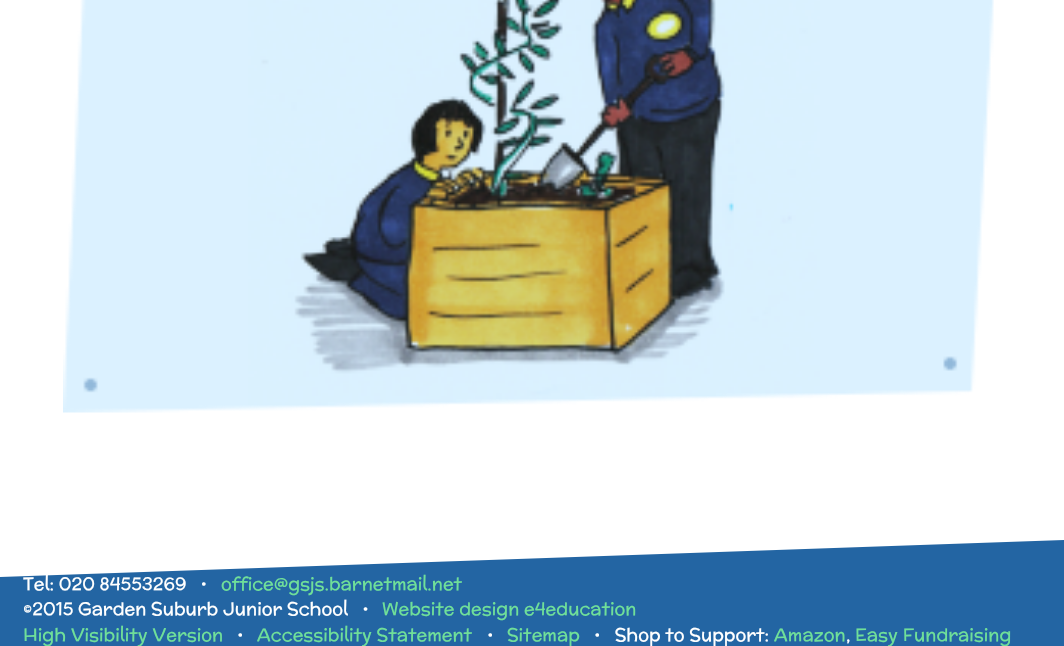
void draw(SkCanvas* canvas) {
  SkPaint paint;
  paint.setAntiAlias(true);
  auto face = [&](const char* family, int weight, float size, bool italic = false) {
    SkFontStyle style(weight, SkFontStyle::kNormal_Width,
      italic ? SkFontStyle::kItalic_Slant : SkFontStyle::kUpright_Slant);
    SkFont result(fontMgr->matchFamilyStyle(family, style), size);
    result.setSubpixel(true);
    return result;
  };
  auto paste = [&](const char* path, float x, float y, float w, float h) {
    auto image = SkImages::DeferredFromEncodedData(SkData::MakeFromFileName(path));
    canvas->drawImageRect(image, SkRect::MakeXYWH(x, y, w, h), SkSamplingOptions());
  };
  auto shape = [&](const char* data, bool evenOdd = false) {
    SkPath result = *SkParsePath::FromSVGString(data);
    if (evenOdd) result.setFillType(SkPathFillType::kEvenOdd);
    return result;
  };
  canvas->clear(0xffffffff);
  paste("img/1.png", 63, 0, 931, 413);
  paint.setColor(0xff2365a3);
  canvas->drawPath(shape("M0 577L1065 540V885L0 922Z"), paint);
  auto f0 = face("McLaren", 400, 18);
  paint.setColor(0xffffffff);
  canvas->drawString("Tel: 020 84553269   •", 23, 590, f0, paint);
  paint.setColor(0xff6fdf99);
  canvas->drawString("office@gsjs.barnetmail.net", 221, 590, f0, paint);
  paint.setColor(0xffffffff);
  canvas->drawString("©2015 Garden Suburb Junior School   •", 23, 615, f0, paint);
  paint.setColor(0xff6fdf99);
  canvas->drawString("Website design e4education", 382, 615, f0, paint);
  canvas->drawString("High Visibility Version", 23, 641, f0, paint);
  paint.setColor(0xffffffff);
  canvas->drawString("•", 237, 641, f0, paint);
  paint.setColor(0xff6fdf99);
  canvas->drawString("Accessibility Statement", 257, 641, f0, paint);
  paint.setColor(0xffffffff);
  canvas->drawString("•", 487, 641, f0, paint);
  paint.setColor(0xff6fdf99);
  canvas->drawString("Sitemap", 507, 641, f0, paint);
  paint.setColor(0xffffffff);
  canvas->drawString("•   Shop to Support:", 594, 641, f0, paint);
  paint.setColor(0xff6fdf99);
  canvas->drawString("Amazon", 774, 641, f0, paint);
  canvas->drawString("Easy Fundraising", 855, 641, f0, paint);
  paint.setColor(0xffffffff);
  canvas->drawString(",", 846, 641, f0, paint);
}
